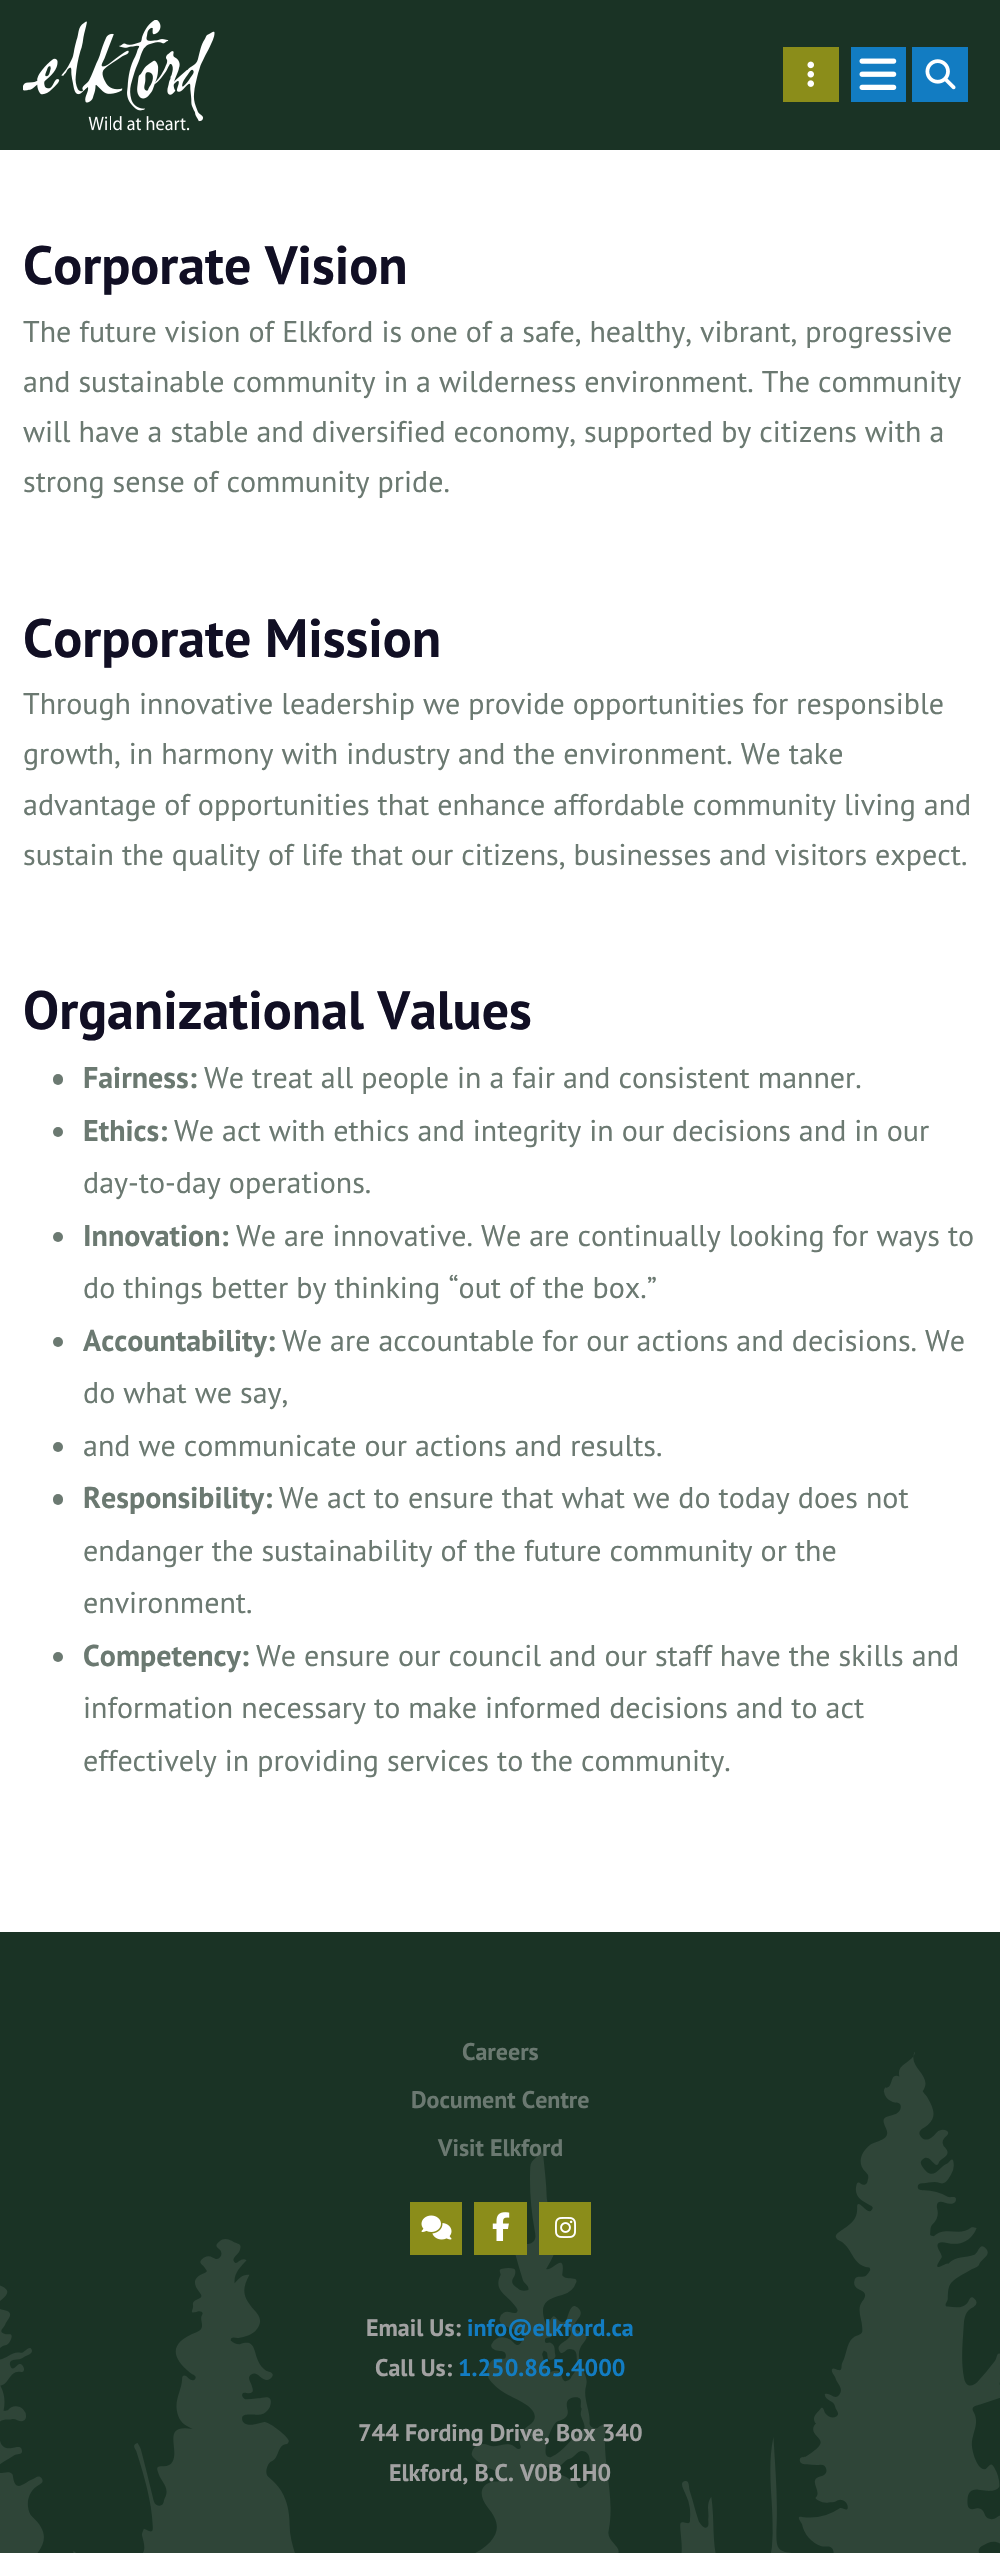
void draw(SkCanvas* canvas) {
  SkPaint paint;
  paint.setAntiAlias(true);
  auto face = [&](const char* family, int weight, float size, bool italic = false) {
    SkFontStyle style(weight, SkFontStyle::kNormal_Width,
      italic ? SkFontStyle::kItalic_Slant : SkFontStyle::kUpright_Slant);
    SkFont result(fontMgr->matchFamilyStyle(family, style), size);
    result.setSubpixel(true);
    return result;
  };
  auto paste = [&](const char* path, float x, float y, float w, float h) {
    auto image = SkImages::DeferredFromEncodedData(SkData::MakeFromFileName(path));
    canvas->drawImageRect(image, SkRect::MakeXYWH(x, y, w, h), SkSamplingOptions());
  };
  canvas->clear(0xffffffff);
  paint.setColor(0xff1a3325);
  canvas->drawRect(SkRect::MakeXYWH(0, 0, 1000, 150), paint);
  paste("img/1.png", 23, 20, 192, 111);
  paint.setColor(0xff8b8d1a);
  canvas->drawRect(SkRect::MakeXYWH(783, 47, 56, 55), paint);
  paste("img/2.png", 807, 61, 7, 26);
  paint.setColor(0xff127cc2);
  canvas->drawRect(SkRect::MakeXYWH(851, 47, 55, 55), paint);
  paste("img/3.png", 859, 58, 38, 32);
  canvas->drawRect(SkRect::MakeXYWH(912, 47, 56, 55), paint);
  paste("img/4.png", 925, 59, 31, 31);
  paint.setColor(0xff6b7971);
  canvas->drawRoundRect(SkRect::MakeXYWH(53, 1074, 10, 11), 5, 5, paint);
  canvas->drawCircle(58, 1132, 5, paint);
  canvas->drawCircle(58, 1237, 5, paint);
  canvas->drawCircle(58, 1342, 5, paint);
  canvas->drawCircle(58, 1447, 5, paint);
  canvas->drawRoundRect(SkRect::MakeXYWH(53, 1494, 10, 11), 5, 5, paint);
  canvas->drawCircle(58, 1657, 5, paint);
  paint.setColor(0xff1a3325);
  canvas->drawRect(SkRect::MakeXYWH(0, 1932, 1000, 621), paint);
  paste("img/5.png", 0, 2052, 1000, 501);
  paint.setColor(0xff8b8d1a);
  canvas->drawRect(SkRect::MakeXYWH(410, 2202, 52, 53), paint);
  paste("img/6.png", 421, 2215, 31, 25);
  canvas->drawRect(SkRect::MakeXYWH(474, 2202, 53, 53), paint);
  paste("img/7.png", 492, 2212, 18, 29);
  canvas->drawRect(SkRect::MakeXYWH(539, 2202, 52, 53), paint);
  paste("img/8.png", 555, 2217, 21, 21);
  auto f0 = face("PT Sans", 700, 54);
  paint.setColor(0xff110f24);
  canvas->drawString("Corporate Vision", 23, 284, f0, paint);
  auto f1 = face("PT Sans", 400, 30);
  paint.setColor(0xff6b7971);
  {
    const struct { const char* s; float x, y; } items[] = {
      {"The future vision of Elkford is one of a safe, healthy, vibrant, progressive", 23, 342},
      {"and sustainable community in a wilderness environment. The community", 23, 392},
      {"will have a stable and diversified economy, supported by citizens with a", 23, 442},
      {"strong sense of community pride.", 23, 492},
    };
    for (auto [s, x, y] : items) {
      canvas->drawString(s, x, y, f1, paint);
    }
  }
  paint.setColor(0xff110f24);
  canvas->drawString("Corporate Mission", 23, 657, f0, paint);
  paint.setColor(0xff6b7971);
  {
    const struct { const char* s; float x, y; } items[] = {
      {"Through innovative leadership we provide opportunities for responsible", 23, 714},
      {"growth, in harmony with industry and the environment. We take", 23, 764},
      {"advantage of opportunities that enhance affordable community living and", 23, 815},
      {"sustain the quality of life that our citizens, businesses and visitors expect.", 23, 865},
    };
    for (auto [s, x, y] : items) {
      canvas->drawString(s, x, y, f1, paint);
    }
  }
  paint.setColor(0xff110f24);
  canvas->drawString("Organizational Values", 23, 1029, f0, paint);
  auto f2 = face("PT Sans", 700, 30);
  paint.setColor(0xff6b7971);
  canvas->drawString("Fairness:", 83, 1088, f2, paint);
  canvas->drawString("We treat all people in a fair and consistent manner.", 204, 1088, f1, paint);
  canvas->drawString("Ethics:", 83, 1141, f2, paint);
  canvas->drawString("We act with ethics and integrity in our decisions and in our", 174, 1141, f1, paint);
  canvas->drawString("day-to-day operations.", 83, 1193, f1, paint);
  canvas->drawString("Innovation:", 83, 1246, f2, paint);
  canvas->drawString("We are innovative. We are continually looking for ways to", 236, 1246, f1, paint);
  canvas->drawString("do things better by thinking “out of the box.”", 83, 1298, f1, paint);
  canvas->drawString("Accountability:", 83, 1351, f2, paint);
  {
    const struct { const char* s; float x, y; } items[] = {
      {"We are accountable for our actions and decisions. We", 282, 1351},
      {"do what we say,", 83, 1403},
      {"and we communicate our actions and results.", 83, 1456},
    };
    for (auto [s, x, y] : items) {
      canvas->drawString(s, x, y, f1, paint);
    }
  }
  canvas->drawString("Responsibility:", 83, 1508, f2, paint);
  {
    const struct { const char* s; float x, y; } items[] = {
      {"We act to ensure that what we do today does not", 279, 1508},
      {"endanger the sustainability of the future community or the", 83, 1561},
      {"environment.", 83, 1613},
    };
    for (auto [s, x, y] : items) {
      canvas->drawString(s, x, y, f1, paint);
    }
  }
  canvas->drawString("Competency:", 83, 1666, f2, paint);
  {
    const struct { const char* s; float x, y; } items[] = {
      {"We ensure our council and our staff have the skills and", 256, 1666},
      {"information necessary to make informed decisions and to act", 83, 1718},
      {"effectively in providing services to the community.", 83, 1771},
    };
    for (auto [s, x, y] : items) {
      canvas->drawString(s, x, y, f1, paint);
    }
  }
  auto f3 = face("PT Sans", 700, 24);
  {
    const struct { const char* s; float x, y; } items[] = {
      {"Careers", 462, 2060},
      {"Document Centre", 411, 2108},
      {"Visit Elkford", 438, 2156},
    };
    for (auto [s, x, y] : items) {
      canvas->drawString(s, x, y, f3, paint);
    }
  }
  paint.setColor(0xffa2a2a2);
  canvas->drawString("Email Us:", 366, 2336, f3, paint);
  paint.setColor(0xff127cc2);
  canvas->drawString("info@elkford.ca", 467, 2336, f3, paint);
  paint.setColor(0xffa2a2a2);
  canvas->drawString("Call Us:", 375, 2376, f3, paint);
  paint.setColor(0xff127cc2);
  canvas->drawString("1.250.865.4000", 458, 2376, f3, paint);
  paint.setColor(0xffa2a2a2);
  canvas->drawString("744 Fording Drive, Box 340", 358, 2441, f3, paint);
  canvas->drawString("Elkford, B.C. V0B 1H0", 389, 2481, f3, paint);
}
